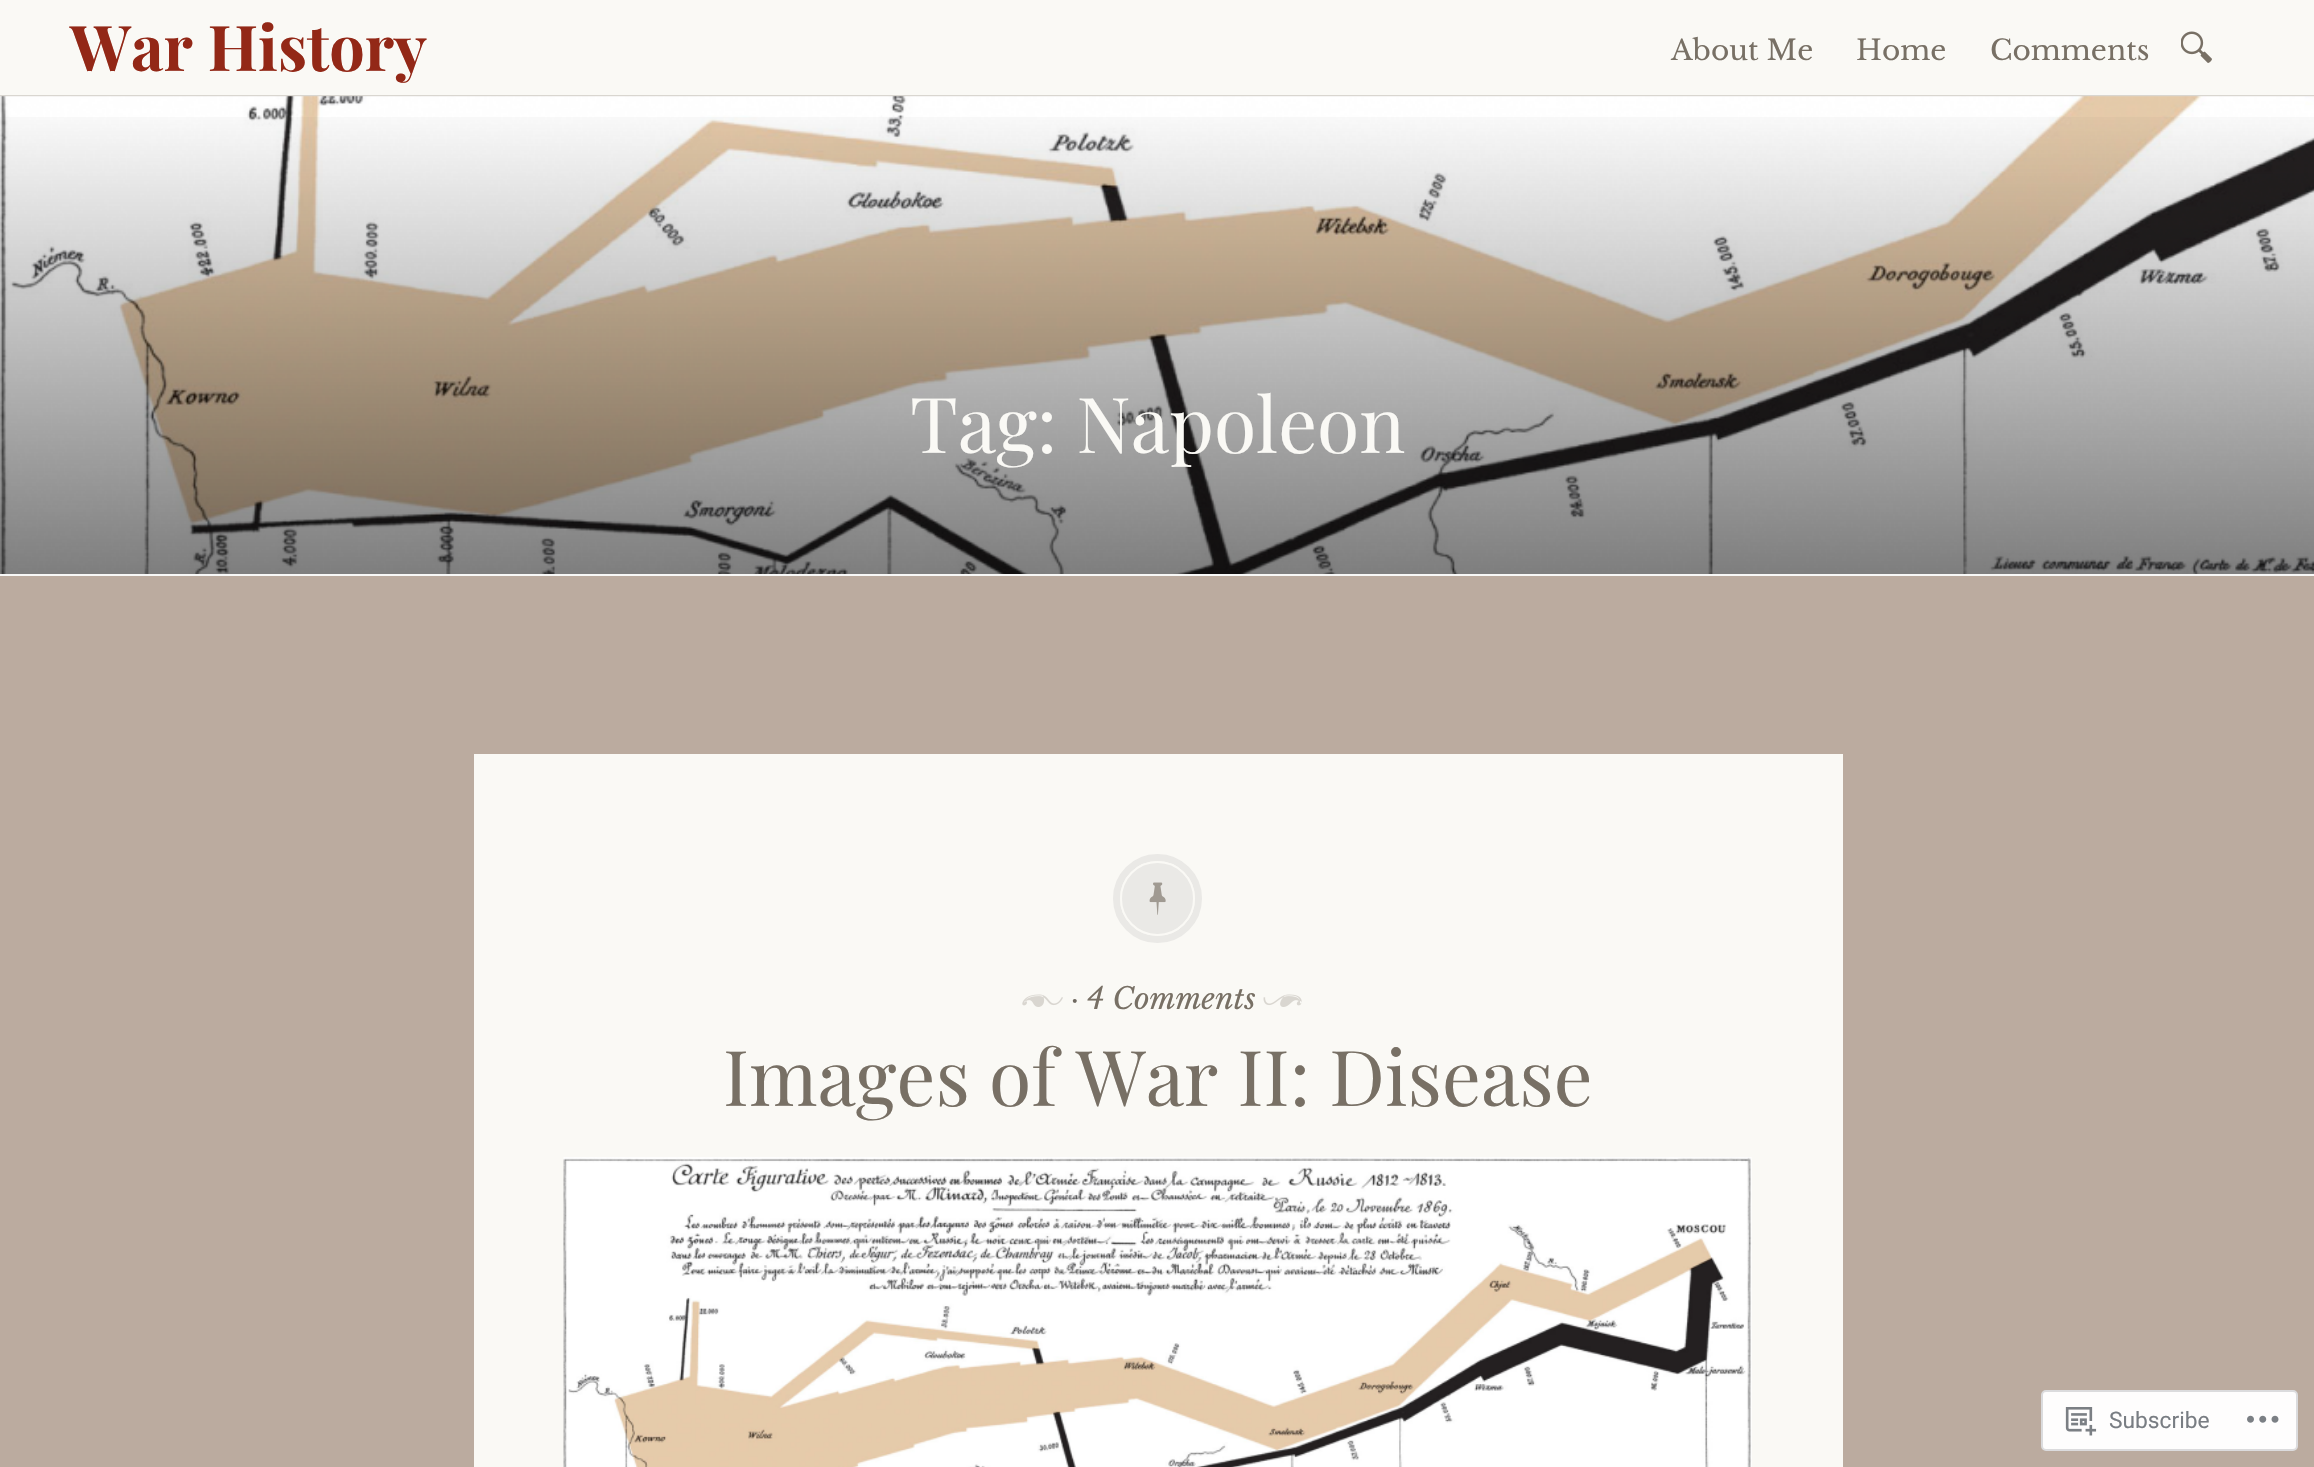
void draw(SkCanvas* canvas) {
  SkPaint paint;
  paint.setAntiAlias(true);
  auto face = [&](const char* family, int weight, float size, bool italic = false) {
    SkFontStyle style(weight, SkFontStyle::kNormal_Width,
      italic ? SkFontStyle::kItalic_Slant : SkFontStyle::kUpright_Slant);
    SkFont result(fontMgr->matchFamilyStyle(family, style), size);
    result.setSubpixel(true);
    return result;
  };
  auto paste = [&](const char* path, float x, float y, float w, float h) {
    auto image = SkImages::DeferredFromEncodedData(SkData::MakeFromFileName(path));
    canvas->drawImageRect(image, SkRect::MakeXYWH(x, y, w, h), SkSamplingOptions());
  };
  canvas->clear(0xffbbab9f);
  paint.setColor(0xfffaf9f5);
  canvas->drawRect(SkRect::MakeXYWH(0, 0, 2314, 95), paint);
  paint.setColor(0xffd9d6d0);
  canvas->drawRect(SkRect::MakeXYWH(0, 95, 2314, 2), paint);
  paste("img/1.png", 2181, 31, 31, 32);
  paste("img/2.png", 0, 96, 2314, 478);
  paint.setColor(0xfff8f8f7);
  canvas->drawRect(SkRect::MakeXYWH(0, 574, 2314, 2), paint);
  {
    const SkColor colors[] = {0x00000000, 0x80000000};
    const float stops[] = {0, 1};
    const SkPoint ends[] = {{1158, 96}, {1158, 574}};
    paint.setShader(SkGradientShader::MakeLinear(ends, colors, stops, 2, SkTileMode::kClamp));
    paint.setAlpha(255);
  }
  canvas->drawRect(SkRect::MakeXYWH(0, 117, 2314, 457), paint);
  paint.setShader(nullptr);
  paint.setColor(0xfffaf9f5);
  canvas->drawRect(SkRect::MakeXYWH(474, 754, 1369, 713), paint);
  paint.setStroke(true);
  paint.setStrokeWidth(7);
  paint.setColor(0xffeae9e6);
  canvas->drawCircle(1157.5f, 898.5f, 41, paint);
  paint.setStroke(false);
  canvas->drawCircle(1157.5f, 898.5f, 36.5f, paint);
  paint.setStroke(true);
  paint.setStrokeWidth(2);
  paint.setColor(0xfffaf9f5);
  canvas->drawCircle(1157.5f, 898.5f, 36.5f, paint);
  paste("img/3.png", 1149, 882, 17, 33);
  paste("img/4.png", 1022, 994, 41, 13);
  paste("img/5.png", 1263, 994, 39, 13);
  paste("img/6.png", 563, 1157, 1189, 310);
  paint.setStroke(false);
  paint.setColor(0xfffefdfd);
  canvas->drawRoundRect(SkRect::MakeXYWH(2042, 1391, 255, 59), 4, 4, paint);
  paint.setStroke(true);
  paint.setColor(0xffdbdbdd);
  canvas->drawRoundRect(SkRect::MakeXYWH(2042, 1391, 255, 59), 4, 4, paint);
  paste("img/7.png", 2065, 1407, 32, 29);
  paste("img/8.png", 2247, 1415, 32, 8);
  auto f0 = face("Playfair Display", 700, 63);
  paint.setStroke(false);
  paint.setColor(0xff932817);
  canvas->drawString("War History", 70, 71, f0, paint);
  auto f1 = face("Libre Baskerville", 400, 28);
  paint.setColor(0xff787065);
  {
    const struct { const char* s; float x, y; } items[] = {
      {"About Me", 1671, 60},
      {"Home", 1856, 60},
      {"Comments", 1990, 60},
    };
    for (auto [s, x, y] : items) {
      canvas->drawString(s, x, y, f1, paint);
    }
  }
  auto f2 = face("Playfair Display", 400, 77);
  paint.setColor(0xfffaf9f5);
  canvas->drawString("Tag: Napoleon", 910, 453, f2, paint);
  auto f3 = face("Libre Baskerville", 400, 29.75f, true);
  paint.setColor(0xff6f6961);
  canvas->drawString("·", 1071, 1009, f3, paint);
  paint.setColor(0xff787065);
  canvas->drawString("4 Comments", 1087, 1009, f3, paint);
  canvas->drawString("Images of War II: Disease", 723, 1106, f2, paint);
  auto f4 = face("Roboto", 400, 22.75f);
  paint.setColor(0xff797d83);
  canvas->drawString("Subscribe", 2109, 1428, f4, paint);
}
